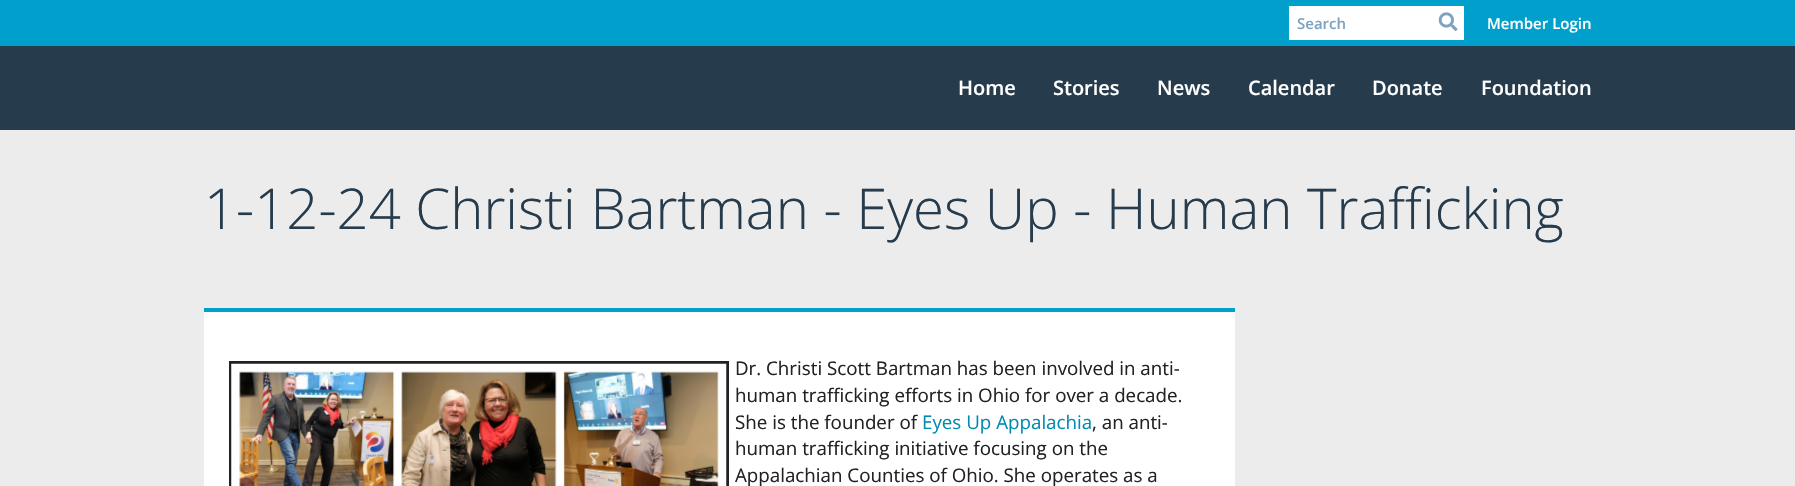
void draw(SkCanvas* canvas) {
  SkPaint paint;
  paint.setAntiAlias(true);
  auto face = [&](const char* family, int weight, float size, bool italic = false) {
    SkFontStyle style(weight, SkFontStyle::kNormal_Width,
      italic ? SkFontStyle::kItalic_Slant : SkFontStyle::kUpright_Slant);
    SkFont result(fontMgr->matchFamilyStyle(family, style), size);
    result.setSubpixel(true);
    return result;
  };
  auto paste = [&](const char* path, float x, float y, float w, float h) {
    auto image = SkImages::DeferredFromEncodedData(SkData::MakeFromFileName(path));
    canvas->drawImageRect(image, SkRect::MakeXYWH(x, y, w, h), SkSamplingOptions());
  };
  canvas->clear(0xffececec);
  paint.setColor(0xff019fcb);
  canvas->drawRect(SkRect::MakeXYWH(0, 0, 1795, 46), paint);
  paint.setColor(0xffffffff);
  canvas->drawRect(SkRect::MakeXYWH(1289, 6, 175, 34), paint);
  paste("img/1.png", 1438, 12, 20, 19);
  {
    const struct { float x, y, w, h; SkColor color; } items[] = {
      {0, 46, 1795, 84, 0xff263b4c},
      {204, 312, 1031, 174, 0xffffffff},
      {204, 308, 1031, 4, 0xff019fcb},
    };
    for (auto [x, y, w, h, color] : items) {
      paint.setColor(color);
      canvas->drawRect(SkRect::MakeXYWH(x, y, w, h), paint);
    }
  }
  paint.setStroke(true);
  paint.setStrokeWidth(3);
  paint.setColor(0xff222222);
  canvas->drawRect(SkRect::MakeXYWH(230.5f, 362.5f, 497, 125), paint);
  paste("img/2.png", 231, 363, 496, 123);
  auto f0 = face("Open Sans", 600, 15);
  paint.setStroke(false);
  paint.setColor(0xff7fa2bf);
  canvas->drawString("Search", 1297, 29, f0, paint);
  paint.setColor(0xffffffff);
  canvas->drawString("Member Login", 1487, 29, f0, paint);
  auto f1 = face("Open Sans", 600, 20);
  {
    const struct { const char* s; float x, y; } items[] = {
      {"Home", 958, 95},
      {"Stories", 1053, 95},
      {"News", 1157, 95},
      {"Calendar", 1248, 95},
      {"Donate", 1372, 95},
      {"Foundation", 1481, 95},
    };
    for (auto [s, x, y] : items) {
      canvas->drawString(s, x, y, f1, paint);
    }
  }
  auto f2 = face("Open Sans", 300, 56.25f);
  paint.setColor(0xff263b4c);
  canvas->drawString("1-12-24 Christi Bartman - Eyes Up - Human Trafficking", 204, 229, f2, paint);
  auto f3 = face("Open Sans", 400, 18.75f);
  paint.setColor(0xff222222);
  {
    const struct { const char* s; float x, y; } items[] = {
      {"Dr. Christi Scott Bartman has been involved in anti-", 735, 375},
      {"human trafficking efforts in Ohio for over a decade.", 735, 402},
      {"She is the founder of", 735, 429},
    };
    for (auto [s, x, y] : items) {
      canvas->drawString(s, x, y, f3, paint);
    }
  }
  paint.setColor(0xff018bb2);
  canvas->drawString("Eyes Up Appalachia", 922, 429, f3, paint);
  paint.setColor(0xff222222);
  {
    const struct { const char* s; float x, y; } items[] = {
      {", an anti-", 1092, 429},
      {"human trafficking initiative focusing on the", 735, 455},
      {"Appalachian Counties of Ohio. She operates as a", 735, 482},
    };
    for (auto [s, x, y] : items) {
      canvas->drawString(s, x, y, f3, paint);
    }
  }
}
